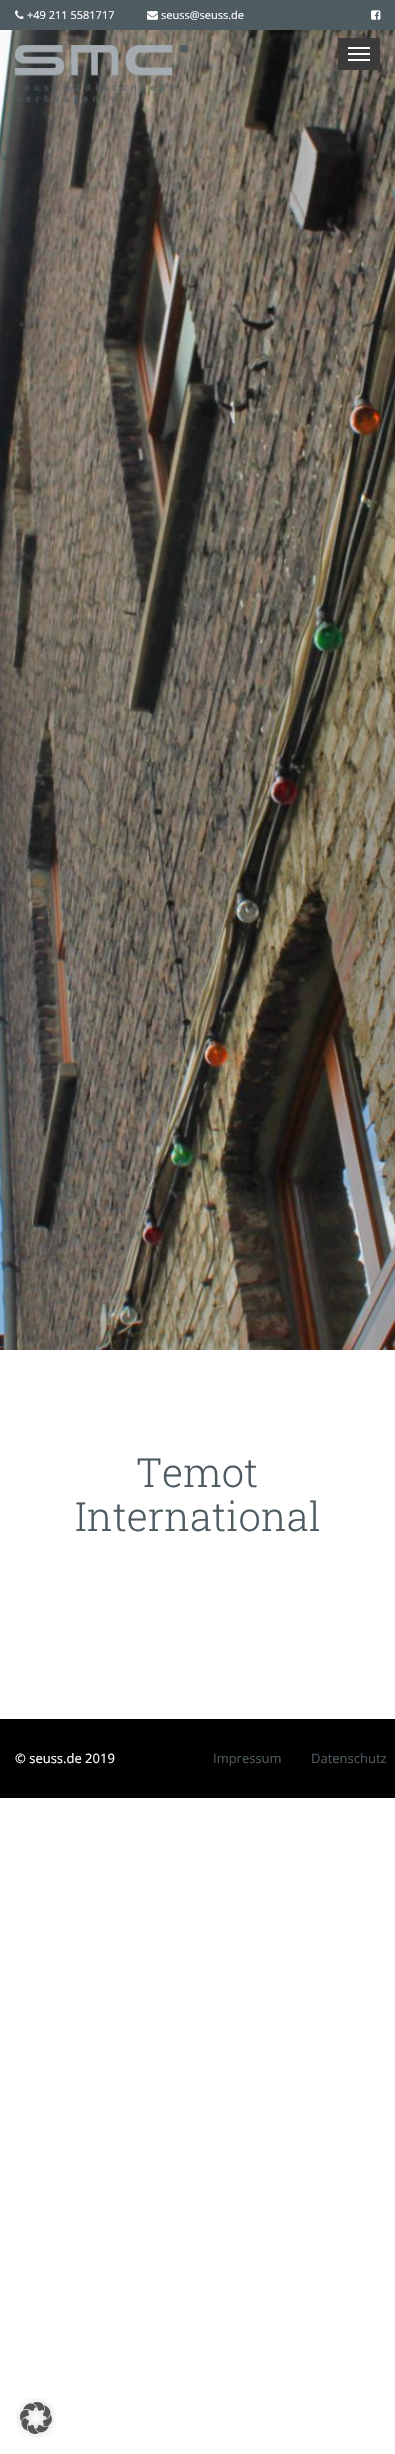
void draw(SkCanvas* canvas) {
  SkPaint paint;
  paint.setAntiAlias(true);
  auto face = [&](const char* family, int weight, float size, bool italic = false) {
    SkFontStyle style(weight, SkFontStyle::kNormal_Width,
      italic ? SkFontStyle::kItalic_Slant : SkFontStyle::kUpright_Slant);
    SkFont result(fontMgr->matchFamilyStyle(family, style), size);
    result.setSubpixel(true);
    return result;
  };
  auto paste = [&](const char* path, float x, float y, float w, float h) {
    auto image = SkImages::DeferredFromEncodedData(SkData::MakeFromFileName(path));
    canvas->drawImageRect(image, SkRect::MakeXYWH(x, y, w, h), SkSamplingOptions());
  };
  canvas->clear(0xffffffff);
  paint.setColor(0xff4e5b61);
  canvas->drawRect(SkRect::MakeXYWH(0, 0, 395, 30), paint);
  paste("img/1.png", 15, 10, 9, 9);
  paste("img/2.png", 147, 11, 11, 9);
  paste("img/3.png", 371, 10, 10, 10);
  paste("img/4.png", 0, 30, 395, 1320);
  paste("img/5.png", 15, 45, 172, 60);
  {
    const struct { float x, y, w, h; SkColor color; } items[] = {
      {338, 38, 42, 32, 0xff3b3b3b},
      {348, 47, 22, 2, 0xffffffff},
      {348, 53, 22, 2, 0xffffffff},
      {348, 59, 22, 2, 0xffffffff},
      {0, 1719, 395, 79, 0xff000000},
    };
    for (auto [x, y, w, h, color] : items) {
      paint.setColor(color);
      canvas->drawRect(SkRect::MakeXYWH(x, y, w, h), paint);
    }
  }
  paste("img/6.png", 16, 2398, 40, 40);
  auto f0 = face("Open Sans", 400, 11);
  paint.setColor(0xffffffff);
  canvas->drawString("+49 211 5581717", 27, 19, f0, paint);
  canvas->drawString("seuss@seuss.de", 161, 19, f0, paint);
  auto f1 = face("Roboto Slab", 300, 40);
  paint.setColor(0xff4e5b61);
  canvas->drawString("Temot", 136, 1487, f1, paint);
  canvas->drawString("International", 75, 1531, f1, paint);
  auto f2 = face("Open Sans", 400, 13);
  paint.setColor(0xffffffff);
  canvas->drawString("© seuss.de 2019", 15, 1763, f2, paint);
  paint.setColor(0xff4e5b61);
  canvas->drawString("Impressum", 213, 1763, f2, paint);
  canvas->drawString("Datenschutz", 311, 1763, f2, paint);
}
